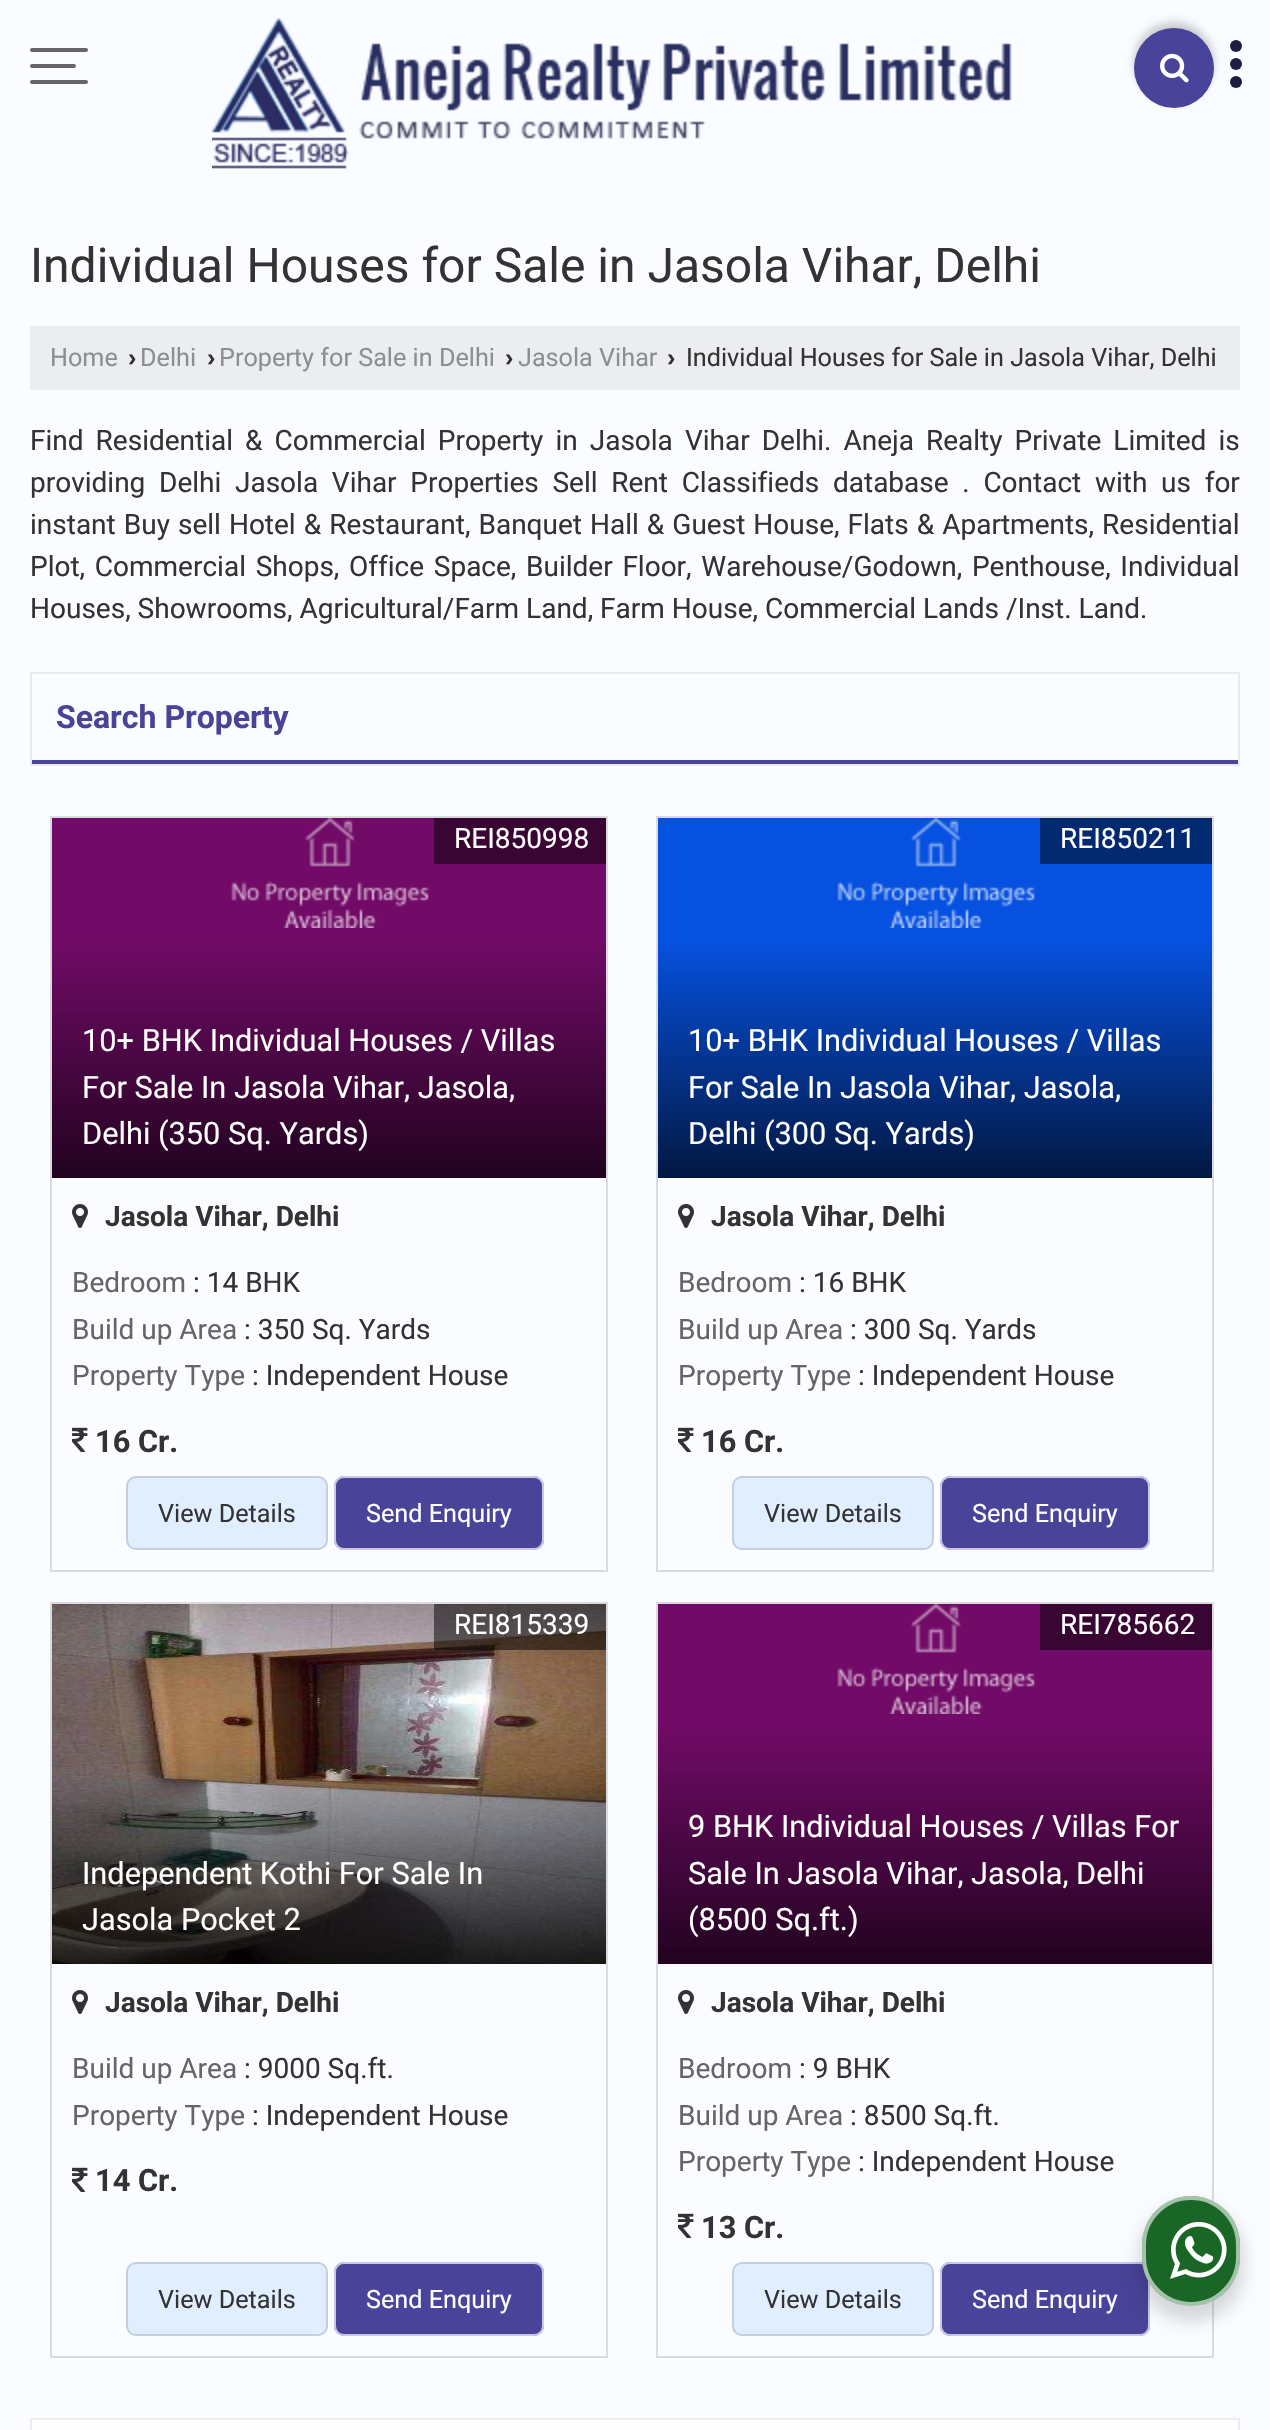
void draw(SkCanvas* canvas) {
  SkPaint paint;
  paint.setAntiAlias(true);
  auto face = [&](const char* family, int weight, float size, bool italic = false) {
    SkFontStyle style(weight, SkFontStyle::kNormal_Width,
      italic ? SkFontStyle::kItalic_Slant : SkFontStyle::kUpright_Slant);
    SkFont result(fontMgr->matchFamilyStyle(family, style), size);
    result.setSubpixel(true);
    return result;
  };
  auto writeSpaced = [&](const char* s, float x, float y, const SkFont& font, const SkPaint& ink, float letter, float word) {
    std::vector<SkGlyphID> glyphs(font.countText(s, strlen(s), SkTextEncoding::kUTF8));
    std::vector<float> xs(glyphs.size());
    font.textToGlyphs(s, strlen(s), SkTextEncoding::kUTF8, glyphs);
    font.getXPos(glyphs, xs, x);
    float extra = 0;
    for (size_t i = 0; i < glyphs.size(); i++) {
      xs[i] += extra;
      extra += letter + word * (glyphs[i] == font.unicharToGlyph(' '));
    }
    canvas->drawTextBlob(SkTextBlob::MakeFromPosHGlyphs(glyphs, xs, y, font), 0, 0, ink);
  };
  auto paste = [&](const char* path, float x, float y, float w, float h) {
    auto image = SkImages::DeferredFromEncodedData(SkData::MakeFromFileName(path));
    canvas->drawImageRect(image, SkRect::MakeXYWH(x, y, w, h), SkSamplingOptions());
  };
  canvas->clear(0xfffafcff);
  paint.setColor(0xff666666);
  canvas->drawRoundRect(SkRect::MakeXYWH(30, 48, 58, 4), 2, 2, paint);
  canvas->drawRoundRect(SkRect::MakeXYWH(30, 64, 46, 4), 2, 2, paint);
  canvas->drawRoundRect(SkRect::MakeXYWH(30, 80, 58, 4), 2, 2, paint);
  paste("img/1.png", 212, 18, 800, 151);
  paint.setColor(0x33000000);
  paint.setMaskFilter(SkMaskFilter::MakeBlur(kNormal_SkBlurStyle, 4));
  canvas->drawRoundRect(SkRect::MakeXYWH(1134, 22, 80, 80), 40, 40, paint);
  paint.setMaskFilter(nullptr);
  paint.setColor(0xff494399);
  canvas->drawCircle(1174, 68, 40, paint);
  paste("img/2.png", 1160, 53, 29, 30);
  paint.setColor(0xff1f1c45);
  canvas->drawCircle(1236, 64, 6, paint);
  canvas->drawCircle(1236, 46, 6, paint);
  canvas->drawCircle(1236, 82, 6, paint);
  paint.setColor(0xffebedf0);
  canvas->drawRect(SkRect::MakeXYWH(30, 326, 1210, 64), paint);
  paint.setStroke(true);
  paint.setStrokeWidth(2);
  paint.setColor(0xffe9eaed);
  canvas->drawRect(SkRect::MakeXYWH(31, 673, 1208, 92), paint);
  paint.setStroke(false);
  paint.setColor(0xff494399);
  canvas->drawRect(SkRect::MakeXYWH(32, 760, 1206, 4), paint);
  paint.setStroke(true);
  paint.setColor(0xffdadbde);
  canvas->drawRect(SkRect::MakeXYWH(51, 817, 556, 754), paint);
  paint.setStroke(false);
  paint.setColor(0xff710b67);
  canvas->drawRect(SkRect::MakeXYWH(52, 818, 554, 122), paint);
  paste("img/3.png", 231, 818, 198, 110);
  paint.setColor(0xff390634);
  canvas->drawRect(SkRect::MakeXYWH(434, 818, 172, 46), paint);
  {
    const SkColor colors[] = {0xff710b67, 0xff22031f};
    const float stops[] = {0, 1};
    const SkPoint ends[] = {{329, 940}, {329, 1178}};
    paint.setShader(SkGradientShader::MakeLinear(ends, colors, stops, 2, SkTileMode::kClamp));
    paint.setAlpha(255);
  }
  canvas->drawRect(SkRect::MakeXYWH(52, 940, 554, 238), paint);
  paste("img/4.png", 72, 1204, 16, 24);
  paste("img/5.png", 72, 1427, 16, 25);
  paint.setShader(nullptr);
  paint.setColor(0xffe0eeff);
  canvas->drawRoundRect(SkRect::MakeXYWH(126, 1476, 202, 74), 10, 10, paint);
  paint.setStroke(true);
  paint.setColor(0x21000000);
  canvas->drawRoundRect(SkRect::MakeXYWH(127, 1477, 200, 72), 9, 9, paint);
  paint.setStroke(false);
  paint.setColor(0xff494399);
  canvas->drawRoundRect(SkRect::MakeXYWH(334, 1476, 210, 74), 10, 10, paint);
  paint.setStroke(true);
  paint.setColor(0xb3ffffff);
  canvas->drawRoundRect(SkRect::MakeXYWH(335, 1477, 208, 72), 9, 9, paint);
  paint.setColor(0xffdadbde);
  canvas->drawRect(SkRect::MakeXYWH(657, 817, 556, 754), paint);
  paint.setStroke(false);
  paint.setColor(0xff0651e0);
  canvas->drawRect(SkRect::MakeXYWH(658, 818, 554, 122), paint);
  paste("img/6.png", 837, 818, 198, 110);
  paint.setColor(0xff032970);
  canvas->drawRect(SkRect::MakeXYWH(1040, 818, 172, 46), paint);
  {
    const SkColor colors[] = {0xff0651e0, 0xff021843};
    const float stops[] = {0, 1};
    const SkPoint ends[] = {{935, 940}, {935, 1178}};
    paint.setShader(SkGradientShader::MakeLinear(ends, colors, stops, 2, SkTileMode::kClamp));
    paint.setAlpha(255);
  }
  canvas->drawRect(SkRect::MakeXYWH(658, 940, 554, 238), paint);
  paste("img/4.png", 678, 1204, 16, 24);
  paste("img/5.png", 678, 1427, 16, 25);
  paint.setShader(nullptr);
  paint.setColor(0xffe0eeff);
  canvas->drawRoundRect(SkRect::MakeXYWH(732, 1476, 202, 74), 10, 10, paint);
  paint.setStroke(true);
  paint.setColor(0x21000000);
  canvas->drawRoundRect(SkRect::MakeXYWH(733, 1477, 200, 72), 9, 9, paint);
  paint.setStroke(false);
  paint.setColor(0xff494399);
  canvas->drawRoundRect(SkRect::MakeXYWH(940, 1476, 210, 74), 10, 10, paint);
  paint.setStroke(true);
  paint.setColor(0xb3ffffff);
  canvas->drawRoundRect(SkRect::MakeXYWH(941, 1477, 208, 72), 9, 9, paint);
  paint.setColor(0xffdadbde);
  canvas->drawRect(SkRect::MakeXYWH(51, 1603, 556, 754), paint);
  paste("img/7.png", 52, 1604, 554, 360);
  paint.setStroke(false);
  paint.setColor(0x80000000);
  canvas->drawRect(SkRect::MakeXYWH(434, 1604, 172, 46), paint);
  paste("img/4.png", 72, 1990, 16, 24);
  paste("img/5.png", 72, 2167, 16, 25);
  paint.setColor(0xffe0eeff);
  canvas->drawRoundRect(SkRect::MakeXYWH(126, 2262, 202, 74), 10, 10, paint);
  paint.setStroke(true);
  paint.setColor(0x21000000);
  canvas->drawRoundRect(SkRect::MakeXYWH(127, 2263, 200, 72), 9, 9, paint);
  paint.setStroke(false);
  paint.setColor(0xff494399);
  canvas->drawRoundRect(SkRect::MakeXYWH(334, 2262, 210, 74), 10, 10, paint);
  paint.setStroke(true);
  paint.setColor(0xb3ffffff);
  canvas->drawRoundRect(SkRect::MakeXYWH(335, 2263, 208, 72), 9, 9, paint);
  paint.setColor(0xffdadbde);
  canvas->drawRect(SkRect::MakeXYWH(657, 1603, 556, 754), paint);
  paint.setStroke(false);
  paint.setColor(0xff710b67);
  canvas->drawRect(SkRect::MakeXYWH(658, 1604, 554, 122), paint);
  paste("img/3.png", 837, 1604, 198, 110);
  paint.setColor(0xff390634);
  canvas->drawRect(SkRect::MakeXYWH(1040, 1604, 172, 46), paint);
  {
    const SkColor colors[] = {0xff710b67, 0xff22031f};
    const float stops[] = {0, 1};
    const SkPoint ends[] = {{935, 1726}, {935, 1964}};
    paint.setShader(SkGradientShader::MakeLinear(ends, colors, stops, 2, SkTileMode::kClamp));
    paint.setAlpha(255);
  }
  canvas->drawRect(SkRect::MakeXYWH(658, 1726, 554, 238), paint);
  paste("img/4.png", 678, 1990, 16, 24);
  paste("img/5.png", 678, 2213, 16, 25);
  paint.setShader(nullptr);
  paint.setColor(0xffe0eeff);
  canvas->drawRoundRect(SkRect::MakeXYWH(732, 2262, 202, 74), 10, 10, paint);
  paint.setStroke(true);
  paint.setColor(0x21000000);
  canvas->drawRoundRect(SkRect::MakeXYWH(733, 2263, 200, 72), 9, 9, paint);
  paint.setStroke(false);
  paint.setColor(0xff494399);
  canvas->drawRoundRect(SkRect::MakeXYWH(940, 2262, 210, 74), 10, 10, paint);
  paint.setStroke(true);
  paint.setColor(0xb3ffffff);
  canvas->drawRoundRect(SkRect::MakeXYWH(941, 2263, 208, 72), 9, 9, paint);
  paint.setStroke(false);
  paint.setColor(0xfffefeff);
  canvas->drawRect(SkRect::MakeXYWH(31, 2419, 1208, 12), paint);
  paint.setStroke(true);
  paint.setColor(0xffececed);
  canvas->drawRect(SkRect::MakeXYWH(31, 2419, 1208, 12), paint);
  paint.setStroke(false);
  paint.setColor(0x24000000);
  paint.setMaskFilter(SkMaskFilter::MakeBlur(kNormal_SkBlurStyle, 8));
  canvas->drawRoundRect(SkRect::MakeXYWH(1138, 2204, 106, 118), 53, 53, paint);
  paint.setMaskFilter(nullptr);
  paint.setColor(0xff196626);
  canvas->drawRoundRect(SkRect::MakeXYWH(1142, 2196, 98, 110), 49, 49, paint);
  paint.setStroke(true);
  paint.setStrokeWidth(4);
  paint.setColor(0x99ffffff);
  canvas->drawRoundRect(SkRect::MakeXYWH(1144, 2198, 94, 106), 47, 47, paint);
  paste("img/8.png", 1170, 2221, 57, 58);
  auto f0 = face("Roboto", 400, 48);
  paint.setStroke(false);
  paint.setColor(0xff333333);
  canvas->drawString("Individual Houses for Sale in Jasola Vihar, Delhi", 30, 282, f0, paint);
  auto f1 = face("Roboto", 400, 25.2f);
  paint.setColor(0xff8d8e90);
  canvas->drawString("Home", 50, 366, f1, paint);
  auto f2 = face("Liberation Sans", 700, 25.2f);
  paint.setColor(0xff333333);
  canvas->drawString("›", 128, 366, f2, paint);
  paint.setColor(0xff8d8e90);
  canvas->drawString("Delhi", 140, 366, f1, paint);
  paint.setColor(0xff333333);
  canvas->drawString("›", 207, 366, f2, paint);
  paint.setColor(0xff8d8e90);
  canvas->drawString("Property for Sale in Delhi", 219, 366, f1, paint);
  paint.setColor(0xff333333);
  canvas->drawString("›", 505, 366, f2, paint);
  paint.setColor(0xff8d8e90);
  canvas->drawString("Jasola Vihar", 518, 366, f1, paint);
  paint.setColor(0xff333333);
  canvas->drawString("›", 667, 366, f2, paint);
  canvas->drawString("Individual Houses for Sale in Jasola Vihar, Delhi", 686, 366, f1, paint);
  auto f3 = face("Roboto", 400, 28);
  writeSpaced("Find Residential & Commercial Property in Jasola Vihar Delhi. Aneja Realty Private Limited is", 30, 450, f3, paint, 0, 5.1f);
  writeSpaced("providing Delhi Jasola Vihar Properties Sell Rent Classifieds database . Contact with us for", 30, 492, f3, paint, 0, 6.75f);
  writeSpaced("instant Buy sell Hotel & Restaurant, Banquet Hall & Guest House, Flats & Apartments, Residential", 30, 534, f3, paint, 0, 1.1f);
  writeSpaced("Plot, Commercial Shops, Office Space, Builder Floor, Warehouse/Godown, Penthouse, Individual", 30, 576, f3, paint, 0, 2.75f);
  canvas->drawString("Houses, Showrooms, Agricultural/Farm Land, Farm House, Commercial Lands /Inst. Land.", 30, 618, f3, paint);
  auto f4 = face("Roboto", 700, 32);
  paint.setColor(0xff494399);
  canvas->drawString("Search Property", 56, 728, f4, paint);
  paint.setColor(0xffffffff);
  canvas->drawString("REI850998", 454, 848, f3, paint);
  auto f5 = face("Roboto", 400, 30.75f);
  {
    const struct { const char* s; float x, y; } items[] = {
      {"10+ BHK Individual Houses / Villas", 82, 1051},
      {"For Sale In Jasola Vihar, Jasola,", 82, 1098},
      {"Delhi (350 Sq. Yards)", 82, 1144},
    };
    for (auto [s, x, y] : items) {
      canvas->drawString(s, x, y, f5, paint);
    }
  }
  auto f6 = face("Roboto", 700, 28);
  paint.setColor(0xff333333);
  canvas->drawString("Jasola Vihar, Delhi", 105, 1226, f6, paint);
  paint.setColor(0xff656566);
  canvas->drawString("Bedroom", 72, 1292, f3, paint);
  paint.setColor(0xff333333);
  canvas->drawString(": 14 BHK", 193, 1292, f3, paint);
  paint.setColor(0xff656566);
  canvas->drawString("Build up Area", 72, 1339, f3, paint);
  paint.setColor(0xff333333);
  canvas->drawString(": 350 Sq. Yards", 244, 1339, f3, paint);
  paint.setColor(0xff656566);
  canvas->drawString("Property Type", 72, 1385, f3, paint);
  paint.setColor(0xff333333);
  canvas->drawString(": Independent House", 252, 1385, f3, paint);
  auto f7 = face("Roboto", 700, 30.75f);
  canvas->drawString("16 Cr.", 95, 1452, f7, paint);
  canvas->drawString("View Details", 158, 1522, f1, paint);
  paint.setColor(0xffffffff);
  canvas->drawString("Send Enquiry", 366, 1522, f1, paint);
  canvas->drawString("REI850211", 1060, 848, f3, paint);
  {
    const struct { const char* s; float x, y; } items[] = {
      {"10+ BHK Individual Houses / Villas", 688, 1051},
      {"For Sale In Jasola Vihar, Jasola,", 688, 1098},
      {"Delhi (300 Sq. Yards)", 688, 1144},
    };
    for (auto [s, x, y] : items) {
      canvas->drawString(s, x, y, f5, paint);
    }
  }
  paint.setColor(0xff333333);
  canvas->drawString("Jasola Vihar, Delhi", 711, 1226, f6, paint);
  paint.setColor(0xff656566);
  canvas->drawString("Bedroom", 678, 1292, f3, paint);
  paint.setColor(0xff333333);
  canvas->drawString(": 16 BHK", 799, 1292, f3, paint);
  paint.setColor(0xff656566);
  canvas->drawString("Build up Area", 678, 1339, f3, paint);
  paint.setColor(0xff333333);
  canvas->drawString(": 300 Sq. Yards", 850, 1339, f3, paint);
  paint.setColor(0xff656566);
  canvas->drawString("Property Type", 678, 1385, f3, paint);
  paint.setColor(0xff333333);
  canvas->drawString(": Independent House", 858, 1385, f3, paint);
  canvas->drawString("16 Cr.", 701, 1452, f7, paint);
  canvas->drawString("View Details", 764, 1522, f1, paint);
  paint.setColor(0xffffffff);
  canvas->drawString("Send Enquiry", 972, 1522, f1, paint);
  canvas->drawString("REI815339", 454, 1634, f3, paint);
  canvas->drawString("Independent Kothi For Sale In", 82, 1884, f5, paint);
  canvas->drawString("Jasola Pocket 2", 82, 1930, f5, paint);
  paint.setColor(0xff333333);
  canvas->drawString("Jasola Vihar, Delhi", 105, 2012, f6, paint);
  paint.setColor(0xff656566);
  canvas->drawString("Build up Area", 72, 2078, f3, paint);
  paint.setColor(0xff333333);
  canvas->drawString(": 9000 Sq.ft.", 244, 2078, f3, paint);
  paint.setColor(0xff656566);
  canvas->drawString("Property Type", 72, 2125, f3, paint);
  paint.setColor(0xff333333);
  canvas->drawString(": Independent House", 252, 2125, f3, paint);
  canvas->drawString("14 Cr.", 95, 2191, f7, paint);
  canvas->drawString("View Details", 158, 2308, f1, paint);
  paint.setColor(0xffffffff);
  canvas->drawString("Send Enquiry", 366, 2308, f1, paint);
  canvas->drawString("REI785662", 1060, 1634, f3, paint);
  {
    const struct { const char* s; float x, y; } items[] = {
      {"9 BHK Individual Houses / Villas For", 688, 1837},
      {"Sale In Jasola Vihar, Jasola, Delhi", 688, 1884},
      {"(8500 Sq.ft.)", 688, 1930},
    };
    for (auto [s, x, y] : items) {
      canvas->drawString(s, x, y, f5, paint);
    }
  }
  paint.setColor(0xff333333);
  canvas->drawString("Jasola Vihar, Delhi", 711, 2012, f6, paint);
  paint.setColor(0xff656566);
  canvas->drawString("Bedroom", 678, 2078, f3, paint);
  paint.setColor(0xff333333);
  canvas->drawString(": 9 BHK", 799, 2078, f3, paint);
  paint.setColor(0xff656566);
  canvas->drawString("Build up Area", 678, 2125, f3, paint);
  paint.setColor(0xff333333);
  canvas->drawString(": 8500 Sq.ft.", 850, 2125, f3, paint);
  paint.setColor(0xff656566);
  canvas->drawString("Property Type", 678, 2171, f3, paint);
  paint.setColor(0xff333333);
  canvas->drawString(": Independent House", 858, 2171, f3, paint);
  canvas->drawString("13 Cr.", 701, 2238, f7, paint);
  canvas->drawString("View Details", 764, 2308, f1, paint);
  paint.setColor(0xffffffff);
  canvas->drawString("Send Enquiry", 972, 2308, f1, paint);
}
